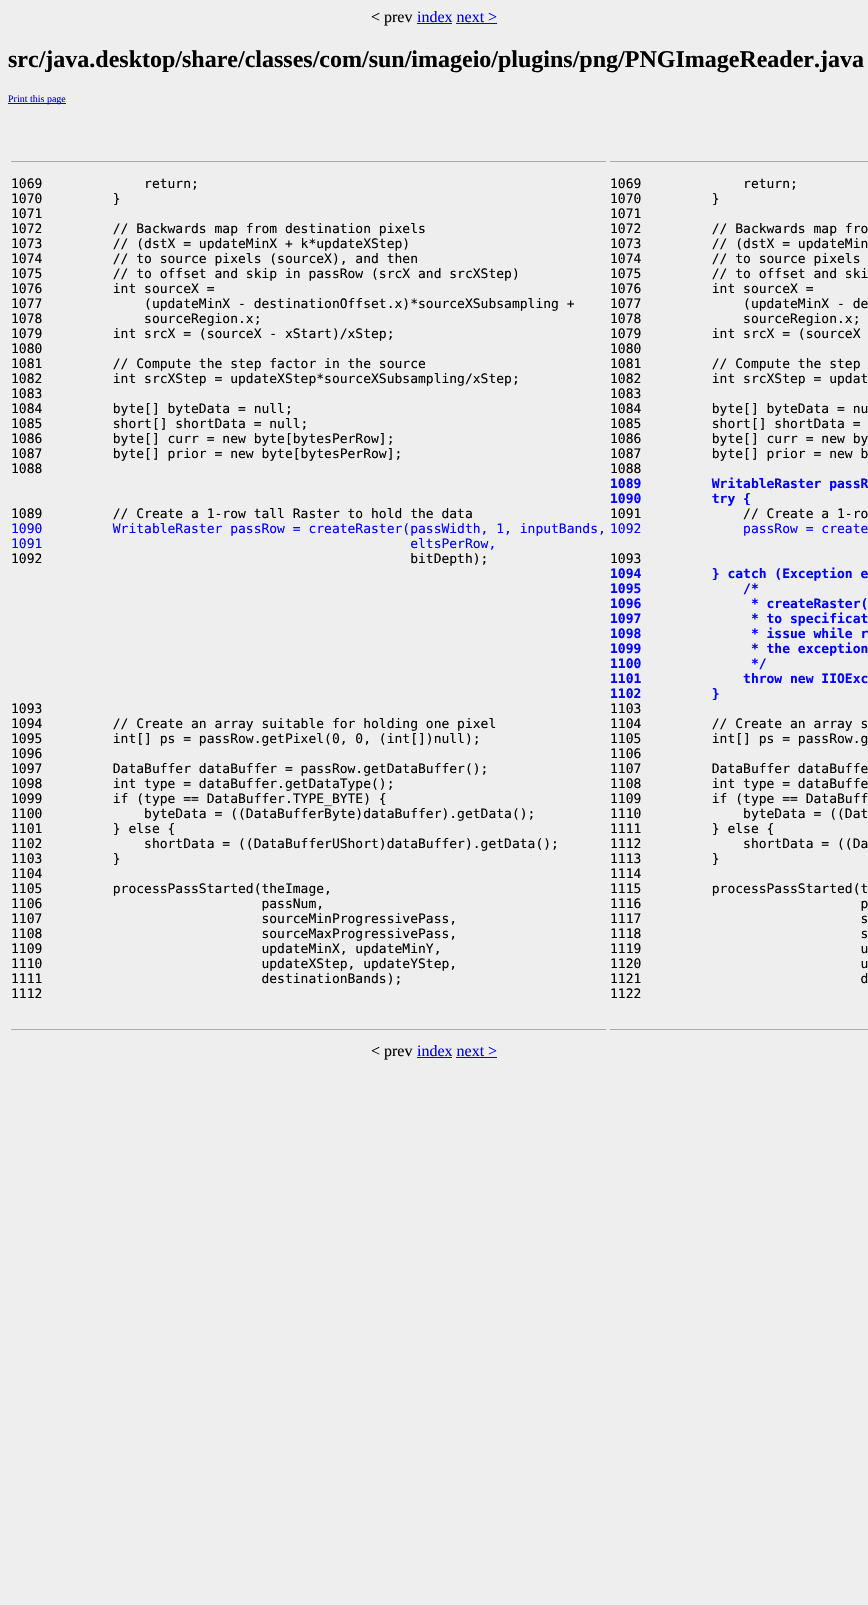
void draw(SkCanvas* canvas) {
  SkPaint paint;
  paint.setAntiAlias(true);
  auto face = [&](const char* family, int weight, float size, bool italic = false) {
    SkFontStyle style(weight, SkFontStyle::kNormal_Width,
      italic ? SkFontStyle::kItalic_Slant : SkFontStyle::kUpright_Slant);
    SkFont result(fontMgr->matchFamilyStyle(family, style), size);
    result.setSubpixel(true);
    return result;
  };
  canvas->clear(0xffeeeeee);
  {
    const struct { float x, y, w, h; SkColor color; } items[] = {
      {417, 23, 35, 1, 0xff0000ee},
      {456, 23, 41, 1, 0xff0000ee},
      {8, 103, 58, 1, 0xff0000ee},
      {11, 161, 595, 1, 0xffaaaaaa},
      {11, 1029, 595, 1, 0xffaaaaaa},
      {610, 161, 258, 1, 0xffaaaaaa},
      {610, 1029, 258, 1, 0xffaaaaaa},
      {417, 1057, 35, 1, 0xff0000ee},
      {456, 1057, 41, 1, 0xff0000ee},
    };
    for (auto [x, y, w, h, color] : items) {
      paint.setColor(color);
      canvas->drawRect(SkRect::MakeXYWH(x, y, w, h), paint);
    }
  }
  auto f0 = face("Liberation Serif", 400, 16);
  paint.setColor(0xff000000);
  canvas->drawString("< prev", 371, 22, f0, paint);
  paint.setColor(0xff0000ee);
  canvas->drawString("index next >", 417, 22, f0, paint);
  auto f1 = face("Liberation Serif", 700, 24);
  paint.setColor(0xff000000);
  canvas->drawString("src/java.desktop/share/classes/com/sun/imageio/plugins/png/PNGImageReader.java", 8, 67, f1, paint);
  auto f2 = face("Liberation Serif", 400, 10);
  paint.setColor(0xff0000ee);
  canvas->drawString("Print this page", 8, 102, f2, paint);
  auto f3 = face("DejaVu Sans Mono", 400, 13);
  paint.setColor(0xff000000);
  {
    const struct { const char* s; float x, y; } items[] = {
      {"1069             return;", 11, 188},
      {"1070         }", 11, 203},
      {"1071", 11, 218},
      {"1072         // Backwards map from destination pixels", 11, 233},
      {"1073         // (dstX = updateMinX + k*updateXStep)", 11, 248},
      {"1074         // to source pixels (sourceX), and then", 11, 263},
      {"1075         // to offset and skip in passRow (srcX and srcXStep)", 11, 278},
      {"1076         int sourceX =", 11, 293},
      {"1077             (updateMinX - destinationOffset.x)*sourceXSubsampling +", 11, 308},
      {"1078             sourceRegion.x;", 11, 323},
      {"1079         int srcX = (sourceX - xStart)/xStep;", 11, 338},
      {"1080", 11, 353},
      {"1081         // Compute the step factor in the source", 11, 368},
      {"1082         int srcXStep = updateXStep*sourceXSubsampling/xStep;", 11, 383},
      {"1083", 11, 398},
      {"1084         byte[] byteData = null;", 11, 413},
      {"1085         short[] shortData = null;", 11, 428},
      {"1086         byte[] curr = new byte[bytesPerRow];", 11, 443},
      {"1087         byte[] prior = new byte[bytesPerRow];", 11, 458},
      {"1088", 11, 473},
      {"1089         // Create a 1-row tall Raster to hold the data", 11, 518},
    };
    for (auto [s, x, y] : items) {
      canvas->drawString(s, x, y, f3, paint);
    }
  }
  paint.setColor(0xff0000ff);
  canvas->drawString("1090         WritableRaster passRow = createRaster(passWidth, 1, inputBands,", 11, 533, f3, paint);
  canvas->drawString("1091                                               eltsPerRow,", 11, 548, f3, paint);
  paint.setColor(0xff000000);
  {
    const struct { const char* s; float x, y; } items[] = {
      {"1092                                               bitDepth);", 11, 563},
      {"1093", 11, 713},
      {"1094         // Create an array suitable for holding one pixel", 11, 728},
      {"1095         int[] ps = passRow.getPixel(0, 0, (int[])null);", 11, 743},
      {"1096", 11, 758},
      {"1097         DataBuffer dataBuffer = passRow.getDataBuffer();", 11, 773},
      {"1098         int type = dataBuffer.getDataType();", 11, 788},
      {"1099         if (type == DataBuffer.TYPE_BYTE) {", 11, 803},
      {"1100             byteData = ((DataBufferByte)dataBuffer).getData();", 11, 818},
      {"1101         } else {", 11, 833},
      {"1102             shortData = ((DataBufferUShort)dataBuffer).getData();", 11, 848},
      {"1103         }", 11, 863},
      {"1104", 11, 878},
      {"1105         processPassStarted(theImage,", 11, 893},
      {"1106                            passNum,", 11, 908},
      {"1107                            sourceMinProgressivePass,", 11, 923},
      {"1108                            sourceMaxProgressivePass,", 11, 938},
      {"1109                            updateMinX, updateMinY,", 11, 953},
      {"1110                            updateXStep, updateYStep,", 11, 968},
      {"1111                            destinationBands);", 11, 983},
      {"1112", 11, 998},
      {"1069             return;", 610, 188},
      {"1070         }", 610, 203},
      {"1071", 610, 218},
      {"1072         // Backwards map fro", 610, 233},
      {"1073         // (dstX = updateMin", 610, 248},
      {"1074         // to source pixels", 610, 263},
      {"1075         // to offset and ski", 610, 278},
      {"1076         int sourceX =", 610, 293},
      {"1077             (updateMinX - de", 610, 308},
      {"1078             sourceRegion.x;", 610, 323},
      {"1079         int srcX = (sourceX", 610, 338},
      {"1080", 610, 353},
      {"1081         // Compute the step", 610, 368},
      {"1082         int srcXStep = updat", 610, 383},
      {"1083", 610, 398},
      {"1084         byte[] byteData = nu", 610, 413},
      {"1085         short[] shortData =", 610, 428},
      {"1086         byte[] curr = new by", 610, 443},
      {"1087         byte[] prior = new b", 610, 458},
      {"1088", 610, 473},
    };
    for (auto [s, x, y] : items) {
      canvas->drawString(s, x, y, f3, paint);
    }
  }
  auto f4 = face("DejaVu Sans Mono", 700, 13);
  paint.setColor(0xff0000ff);
  canvas->drawString("1089         WritableRaster passR", 610, 488, f4, paint);
  canvas->drawString("1090         try {", 610, 503, f4, paint);
  paint.setColor(0xff000000);
  canvas->drawString("1091             // Create a 1-ro", 610, 518, f3, paint);
  paint.setColor(0xff0000ff);
  canvas->drawString("1092             passRow = create", 610, 533, f3, paint);
  paint.setColor(0xff000000);
  canvas->drawString("1093", 610, 563, f3, paint);
  paint.setColor(0xff0000ff);
  {
    const struct { const char* s; float x, y; } items[] = {
      {"1094         } catch (Exception e", 610, 578},
      {"1095             /*", 610, 593},
      {"1096              * createRaster(", 610, 608},
      {"1097              * to specificat", 610, 623},
      {"1098              * issue while r", 610, 638},
      {"1099              * the exception", 610, 653},
      {"1100              */", 610, 668},
      {"1101             throw new IIOExc", 610, 683},
      {"1102         }", 610, 698},
    };
    for (auto [s, x, y] : items) {
      canvas->drawString(s, x, y, f4, paint);
    }
  }
  paint.setColor(0xff000000);
  {
    const struct { const char* s; float x, y; } items[] = {
      {"1103", 610, 713},
      {"1104         // Create an array s", 610, 728},
      {"1105         int[] ps = passRow.g", 610, 743},
      {"1106", 610, 758},
      {"1107         DataBuffer dataBuffe", 610, 773},
      {"1108         int type = dataBuffe", 610, 788},
      {"1109         if (type == DataBuff", 610, 803},
      {"1110             byteData = ((Dat", 610, 818},
      {"1111         } else {", 610, 833},
      {"1112             shortData = ((Da", 610, 848},
      {"1113         }", 610, 863},
      {"1114", 610, 878},
      {"1115         processPassStarted(t", 610, 893},
      {"1116                            p", 610, 908},
      {"1117                            s", 610, 923},
      {"1118                            s", 610, 938},
      {"1119                            u", 610, 953},
      {"1120                            u", 610, 968},
      {"1121                            d", 610, 983},
      {"1122", 610, 998},
    };
    for (auto [s, x, y] : items) {
      canvas->drawString(s, x, y, f3, paint);
    }
  }
  canvas->drawString("< prev", 371, 1056, f0, paint);
  paint.setColor(0xff0000ee);
  canvas->drawString("index next >", 417, 1056, f0, paint);
}
